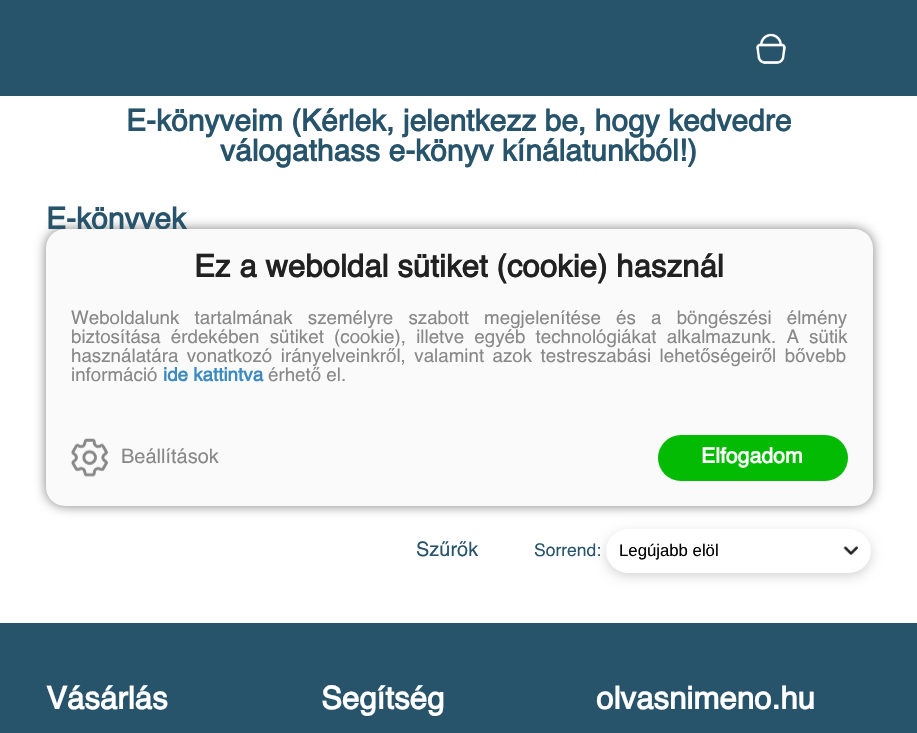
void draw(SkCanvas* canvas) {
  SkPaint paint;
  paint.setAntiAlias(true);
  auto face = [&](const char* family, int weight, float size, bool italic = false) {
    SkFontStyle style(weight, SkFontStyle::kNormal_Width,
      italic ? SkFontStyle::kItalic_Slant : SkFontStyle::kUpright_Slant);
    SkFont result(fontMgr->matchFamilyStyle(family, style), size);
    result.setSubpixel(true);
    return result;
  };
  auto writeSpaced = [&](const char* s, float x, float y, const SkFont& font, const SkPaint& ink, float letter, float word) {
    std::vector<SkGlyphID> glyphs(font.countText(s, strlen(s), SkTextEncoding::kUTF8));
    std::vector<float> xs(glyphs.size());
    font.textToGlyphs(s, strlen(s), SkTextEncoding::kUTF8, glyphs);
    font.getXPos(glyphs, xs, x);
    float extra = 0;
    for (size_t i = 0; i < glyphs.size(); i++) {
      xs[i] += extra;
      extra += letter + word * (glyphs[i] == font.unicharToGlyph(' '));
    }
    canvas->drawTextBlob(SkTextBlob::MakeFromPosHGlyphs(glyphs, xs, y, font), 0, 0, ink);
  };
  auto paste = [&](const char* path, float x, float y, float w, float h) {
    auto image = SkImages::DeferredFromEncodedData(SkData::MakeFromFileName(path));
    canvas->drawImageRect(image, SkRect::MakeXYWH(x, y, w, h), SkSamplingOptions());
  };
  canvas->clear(0xffffffff);
  paint.setColor(0xff27546b);
  canvas->drawRect(SkRect::MakeXYWH(0, 0, 917, 96), paint);
  paste("img/1.png", 756, 33, 30, 31);
  paint.setColor(0x2b000000);
  paint.setMaskFilter(SkMaskFilter::MakeBlur(kNormal_SkBlurStyle, 6));
  canvas->drawRoundRect(SkRect::MakeXYWH(606, 533, 265, 43), 21.5f, 21.5f, paint);
  paint.setMaskFilter(nullptr);
  paint.setColor(0xffffffff);
  canvas->drawRoundRect(SkRect::MakeXYWH(606, 529, 265, 44), 22, 22, paint);
  paste("img/2.png", 843, 546, 15, 9);
  paint.setColor(0xff27546b);
  canvas->drawRect(SkRect::MakeXYWH(0, 623, 917, 110), paint);
  paint.setColor(0x80000000);
  paint.setMaskFilter(SkMaskFilter::MakeBlur(kNormal_SkBlurStyle, 6));
  canvas->drawRoundRect(SkRect::MakeXYWH(46, 229, 827, 277), 19, 19, paint);
  paint.setMaskFilter(nullptr);
  auto f0 = face("Helvetica", 700, 30);
  paint.setColor(0xff27546b);
  {
    const struct { const char* s; float x, y; } items[] = {
      {"E-könyveim (Kérlek, jelentkezz be, hogy kedvedre", 126, 131},
      {"válogathass e-könyv kínálatunkból!)", 220, 161},
      {"E-könyvek", 46, 229},
    };
    for (auto [s, x, y] : items) {
      canvas->drawString(s, x, y, f0, paint);
    }
  }
  auto f1 = face("Helvetica", 400, 20);
  canvas->drawString("Szűrők", 416, 556, f1, paint);
  auto f2 = face("Helvetica", 400, 17.5f);
  canvas->drawString("Sorrend:", 534, 556, f2, paint);
  auto f3 = face("Liberation Sans", 400, 16.75f);
  paint.setColor(0xff000000);
  canvas->drawString("Legújabb elöl", 619, 556, f3, paint);
  auto f4 = face("Helvetica", 700, 31.25f);
  paint.setColor(0xffffffff);
  {
    const struct { const char* s; float x, y; } items[] = {
      {"Vásárlás", 46, 709},
      {"Segítség", 321, 709},
      {"olvasnimeno.hu", 596, 709},
    };
    for (auto [s, x, y] : items) {
      canvas->drawString(s, x, y, f4, paint);
    }
  }
  paint.setColor(0xfffafafa);
  canvas->drawRoundRect(SkRect::MakeXYWH(46, 229, 827, 277), 19, 19, paint);
  paint.setColor(0xff212121);
  canvas->drawString("Ez a weboldal sütiket (cookie) használ", 194, 277, f4, paint);
  auto f5 = face("Helvetica", 400, 18.75f);
  paint.setColor(0xff888888);
  writeSpaced("Weboldalunk tartalmának személyre szabott megjelenítése és a böngészési élmény", 71, 324, f5, paint, 0, 10);
  writeSpaced("biztosítása érdekében sütiket (cookie), illetve egyéb technológiákat alkalmazunk. A sütik", 71, 343, f5, paint, 0, 5);
  writeSpaced("használatára vonatkozó irányelveinkről, valamint azok testreszabási lehetőségeiről bővebb", 71, 362, f5, paint, 0, 3.25f);
  canvas->drawString("információ", 71, 381, f5, paint);
  auto f6 = face("Helvetica", 700, 18.75f);
  paint.setColor(0xff3c8ac1);
  canvas->drawString("ide kattintva", 163, 381, f6, paint);
  paint.setColor(0xff888888);
  canvas->drawString("érhető el.", 268, 381, f5, paint);
  paste("img/3.png", 71, 438, 37, 39);
  canvas->drawString("Beállítások", 121, 463, f1, paint);
  paint.setColor(0xff02bb02);
  canvas->drawRoundRect(SkRect::MakeXYWH(658, 435, 190, 46), 23, 23, paint);
  auto f7 = face("Helvetica", 700, 21.25f);
  paint.setColor(0xffffffff);
  canvas->drawString("Elfogadom", 701, 463, f7, paint);
}
